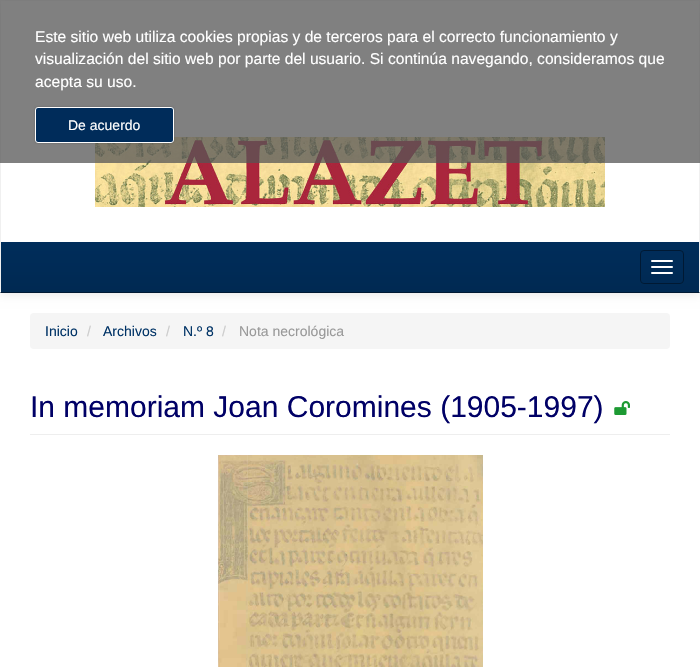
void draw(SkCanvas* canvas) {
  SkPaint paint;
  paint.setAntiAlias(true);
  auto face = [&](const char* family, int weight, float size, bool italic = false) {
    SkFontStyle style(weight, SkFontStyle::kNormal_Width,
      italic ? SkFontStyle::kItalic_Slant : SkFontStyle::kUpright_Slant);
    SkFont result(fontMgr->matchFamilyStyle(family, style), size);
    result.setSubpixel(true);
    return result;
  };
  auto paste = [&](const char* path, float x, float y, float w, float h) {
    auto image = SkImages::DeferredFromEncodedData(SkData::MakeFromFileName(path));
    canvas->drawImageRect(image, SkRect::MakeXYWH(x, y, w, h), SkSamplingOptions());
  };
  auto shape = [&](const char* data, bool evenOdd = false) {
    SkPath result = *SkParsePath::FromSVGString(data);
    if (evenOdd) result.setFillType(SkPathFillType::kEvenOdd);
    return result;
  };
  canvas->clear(0xffffffff);
  paint.setColor(0x1a000000);
  paint.setMaskFilter(SkMaskFilter::MakeBlur(kNormal_SkBlurStyle, 5));
  canvas->drawRect(SkRect::MakeXYWH(0, 1, 700, 293), paint);
  paint.setMaskFilter(nullptr);
  paint.setColor(0xffffffff);
  canvas->drawRect(SkRect::MakeXYWH(1, 1, 698, 241), paint);
  paste("img/1.png", 95, 137, 510, 70);
  paint.setColor(0xbf565656);
  canvas->drawRect(SkRect::MakeXYWH(0, 0, 700, 163), paint);
  paint.setColor(0x40000000);
  paint.setMaskFilter(SkMaskFilter::MakeBlur(kNormal_SkBlurStyle, 1));
  canvas->drawRoundRect(SkRect::MakeXYWH(35, 107, 139, 36), 3, 3, paint);
  paint.setMaskFilter(nullptr);
  paint.setColor(0xff002c5a);
  canvas->drawRoundRect(SkRect::MakeXYWH(35.5f, 107.5f, 138, 35), 2.5f, 2.5f, paint);
  paint.setStroke(true);
  paint.setStrokeWidth(1);
  paint.setColor(0xffffffff);
  canvas->drawRoundRect(SkRect::MakeXYWH(35.5f, 107.5f, 138, 35), 2.5f, 2.5f, paint);
  paint.setStroke(false);
  {
    const SkColor colors[] = {0xff00478f, 0xff003366, 0xff002952};
    const float stops[] = {0, 0.6f, 1};
    const SkPoint ends[] = {{350, 1}, {350, 292}};
    paint.setShader(SkGradientShader::MakeLinear(ends, colors, stops, 3, SkTileMode::kClamp));
    paint.setAlpha(255);
  }
  canvas->drawRect(SkRect::MakeXYWH(1, 242, 698, 50), paint);
  paint.setShader(nullptr);
  paint.setColor(0xff001933);
  canvas->drawPath(shape("M700 293H0L1 292H699Z"), paint);
  paint.setStroke(true);
  canvas->drawRoundRect(SkRect::MakeXYWH(640.5f, 250.5f, 43, 33), 3.5f, 3.5f, paint);
  paint.setStroke(false);
  paint.setColor(0xffffffff);
  canvas->drawRoundRect(SkRect::MakeXYWH(651, 260, 22, 2), 1, 1, paint);
  canvas->drawRoundRect(SkRect::MakeXYWH(651, 266, 22, 2), 1, 1, paint);
  canvas->drawRoundRect(SkRect::MakeXYWH(651, 272, 22, 2), 1, 1, paint);
  paint.setColor(0xfff5f5f5);
  canvas->drawRoundRect(SkRect::MakeXYWH(30, 313, 640, 36), 4, 4, paint);
  paint.setColor(0xffeeeeee);
  canvas->drawRect(SkRect::MakeXYWH(30, 434, 640, 1), paint);
  paste("img/2.png", 614, 401, 16, 14);
  paste("img/3.png", 218, 455, 265, 212);
  auto f0 = face("Liberation Sans", 400, 15.6f);
  paint.setColor(0xffffffff);
  {
    const struct { const char* s; float x, y; } items[] = {
      {"Este sitio web utiliza cookies propias y de terceros para el correcto funcionamiento y", 35, 42},
      {"visualización del sitio web por parte del usuario. Si continúa navegando, consideramos que", 35, 64},
      {"acepta su uso.", 35, 87},
    };
    for (auto [s, x, y] : items) {
      canvas->drawString(s, x, y, f0, paint);
    }
  }
  auto f1 = face("Liberation Sans", 400, 14);
  canvas->drawString("De acuerdo", 68, 130, f1, paint);
  paint.setColor(0xff003366);
  canvas->drawString("Inicio", 45, 336, f1, paint);
  paint.setColor(0xffcccccc);
  canvas->drawString("/", 87, 336, f1, paint);
  paint.setColor(0xff003366);
  canvas->drawString("Archivos", 103, 336, f1, paint);
  paint.setColor(0xffcccccc);
  canvas->drawString("/", 166, 336, f1, paint);
  paint.setColor(0xff003366);
  canvas->drawString("N.º 8", 183, 336, f1, paint);
  paint.setColor(0xffcccccc);
  canvas->drawString("/", 222, 336, f1, paint);
  paint.setColor(0xff999999);
  canvas->drawString("Nota necrológica", 239, 336, f1, paint);
  auto f2 = face("Liberation Sans", 400, 30);
  paint.setColor(0xff000066);
  canvas->drawString("In memoriam Joan Coromines (1905-1997)", 30, 417, f2, paint);
}
